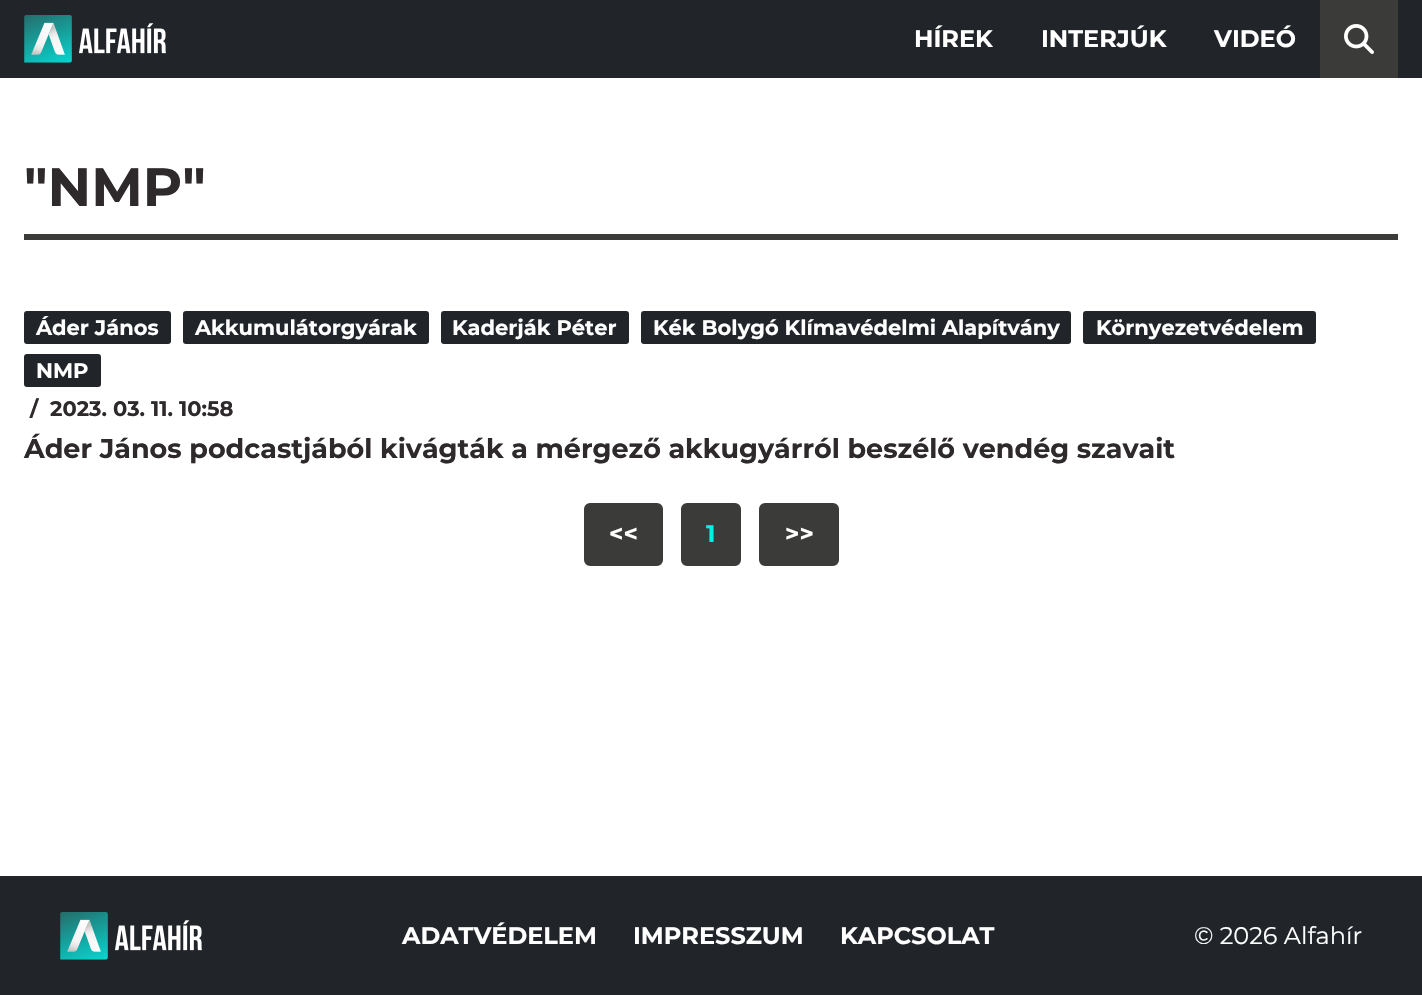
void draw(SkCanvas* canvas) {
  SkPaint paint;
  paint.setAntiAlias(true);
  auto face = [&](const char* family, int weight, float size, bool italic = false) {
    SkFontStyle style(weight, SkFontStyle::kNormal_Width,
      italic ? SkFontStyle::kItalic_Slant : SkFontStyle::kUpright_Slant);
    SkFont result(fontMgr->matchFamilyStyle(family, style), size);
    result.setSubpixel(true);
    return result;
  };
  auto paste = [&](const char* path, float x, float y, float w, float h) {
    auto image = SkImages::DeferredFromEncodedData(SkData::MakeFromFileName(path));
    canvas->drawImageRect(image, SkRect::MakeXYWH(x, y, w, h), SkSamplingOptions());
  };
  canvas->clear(0xffffffff);
  paint.setColor(0xff212529);
  canvas->drawRect(SkRect::MakeXYWH(0, 0, 1422, 78), paint);
  paste("img/1.png", 24, 15, 142, 48);
  paint.setColor(0xff3b3b3a);
  canvas->drawRect(SkRect::MakeXYWH(1320, 0, 78, 78), paint);
  paste("img/2.png", 1344, 24, 30, 30);
  canvas->drawRect(SkRect::MakeXYWH(24, 234, 1374, 6), paint);
  paint.setColor(0xff212529);
  canvas->drawRoundRect(SkRect::MakeXYWH(24, 311, 147, 33), 3, 3, paint);
  canvas->drawRoundRect(SkRect::MakeXYWH(183, 311, 246, 33), 3, 3, paint);
  canvas->drawRoundRect(SkRect::MakeXYWH(441, 311, 188, 33), 3, 3, paint);
  canvas->drawRoundRect(SkRect::MakeXYWH(641, 311, 430, 33), 3, 3, paint);
  canvas->drawRoundRect(SkRect::MakeXYWH(1083, 311, 233, 33), 3, 3, paint);
  canvas->drawRoundRect(SkRect::MakeXYWH(24, 354, 77, 33), 3, 3, paint);
  paint.setColor(0xff3b3b3a);
  canvas->drawRoundRect(SkRect::MakeXYWH(585, 504, 77, 61), 5, 5, paint);
  paint.setStroke(true);
  paint.setStrokeWidth(2);
  canvas->drawRoundRect(SkRect::MakeXYWH(585, 504, 77, 61), 5, 5, paint);
  paint.setStroke(false);
  canvas->drawRoundRect(SkRect::MakeXYWH(682, 504, 58, 61), 5, 5, paint);
  paint.setStroke(true);
  canvas->drawRoundRect(SkRect::MakeXYWH(682, 504, 58, 61), 5, 5, paint);
  paint.setStroke(false);
  canvas->drawRoundRect(SkRect::MakeXYWH(760, 504, 78, 61), 5, 5, paint);
  paint.setStroke(true);
  canvas->drawRoundRect(SkRect::MakeXYWH(760, 504, 78, 61), 5, 5, paint);
  paint.setStroke(false);
  paint.setColor(0xff212529);
  canvas->drawRect(SkRect::MakeXYWH(0, 876, 1422, 119), paint);
  paste("img/1.png", 60, 912, 142, 48);
  auto f0 = face("Montserrat", 700, 24);
  paint.setColor(0xffffffff);
  {
    const struct { const char* s; float x, y; } items[] = {
      {"HÍREK", 914, 47},
      {"INTERJÚK", 1041, 47},
      {"VIDEÓ", 1214, 47},
    };
    for (auto [s, x, y] : items) {
      canvas->drawString(s, x, y, f0, paint);
    }
  }
  auto f1 = face("Montserrat", 700, 54);
  paint.setColor(0xff2e292a);
  canvas->drawString("\"NMP\"", 24, 206, f1, paint);
  auto f2 = face("Montserrat", 700, 21);
  paint.setColor(0xffffffff);
  {
    const struct { const char* s; float x, y; } items[] = {
      {"Áder János", 36, 335},
      {"Akkumulátorgyárak", 195, 335},
      {"Kaderják Péter", 452, 335},
      {"Kék Bolygó Klímavédelmi Alapítvány", 653, 335},
      {"Környezetvédelem", 1096, 335},
      {"NMP", 36, 378},
    };
    for (auto [s, x, y] : items) {
      canvas->drawString(s, x, y, f2, paint);
    }
  }
  paint.setColor(0xff2e292a);
  canvas->drawString("/", 30, 416, f2, paint);
  canvas->drawString("2023. 03. 11. 10:58", 50, 416, f2, paint);
  auto f3 = face("Montserrat", 700, 27);
  canvas->drawString("Áder János podcastjából kivágták a mérgező akkugyárról beszélő vendég szavait", 24, 458, f3, paint);
  paint.setColor(0xffffffff);
  canvas->drawString("<<", 609, 542, f0, paint);
  paint.setColor(0xff00f0e8);
  canvas->drawString("1", 706, 542, f0, paint);
  paint.setColor(0xffffffff);
  {
    const struct { const char* s; float x, y; } items[] = {
      {">>", 785, 542},
      {"ADATVÉDELEM", 402, 944},
      {"IMPRESSZUM", 633, 944},
      {"KAPCSOLAT", 840, 944},
    };
    for (auto [s, x, y] : items) {
      canvas->drawString(s, x, y, f0, paint);
    }
  }
  auto f4 = face("Montserrat", 400, 24);
  canvas->drawString("© 2026 Alfahír", 1194, 944, f4, paint);
}
